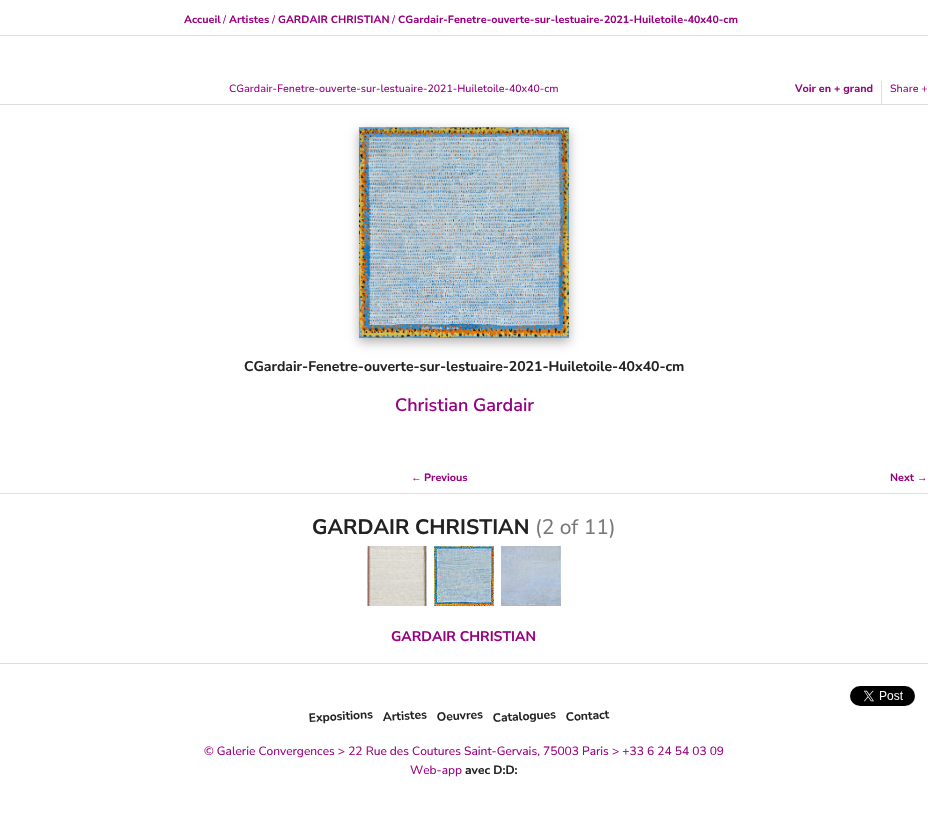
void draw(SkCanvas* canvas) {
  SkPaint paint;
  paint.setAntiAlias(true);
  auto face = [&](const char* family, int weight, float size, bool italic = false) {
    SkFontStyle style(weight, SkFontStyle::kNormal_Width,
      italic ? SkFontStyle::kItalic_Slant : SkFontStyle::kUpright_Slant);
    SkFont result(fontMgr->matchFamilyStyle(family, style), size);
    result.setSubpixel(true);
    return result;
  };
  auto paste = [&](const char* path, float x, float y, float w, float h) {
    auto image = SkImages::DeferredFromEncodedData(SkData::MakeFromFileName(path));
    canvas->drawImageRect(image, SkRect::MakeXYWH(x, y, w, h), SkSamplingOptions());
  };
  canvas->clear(0xffffffff);
  {
    const struct { float x, y, w, h; SkColor color; } items[] = {
      {0, 35, 928, 1, 0xffdedede},
      {0, 104, 928, 1, 0xffdedede},
      {881, 81, 1, 23, 0xffdedede},
    };
    for (auto [x, y, w, h, color] : items) {
      paint.setColor(color);
      canvas->drawRect(SkRect::MakeXYWH(x, y, w, h), paint);
    }
  }
  paint.setColor(0x4d000000);
  paint.setMaskFilter(SkMaskFilter::MakeBlur(kNormal_SkBlurStyle, 5));
  canvas->drawRect(SkRect::MakeXYWH(359, 131, 210, 211), paint);
  paint.setMaskFilter(nullptr);
  paste("img/1.png", 359, 127, 210, 211);
  paint.setColor(0xffdedede);
  canvas->drawRect(SkRect::MakeXYWH(0, 493, 928, 1), paint);
  paste("img/2.png", 367, 546, 60, 60);
  paste("img/3.png", 434, 546, 60, 60);
  paste("img/4.png", 501, 546, 60, 60);
  canvas->drawRect(SkRect::MakeXYWH(0, 663, 928, 1), paint);
  paste("img/5.png", 850, 686, 65, 20);
  auto f0 = face("Nunito Sans", 700, 10.5f);
  paint.setColor(0xff990081);
  canvas->drawString("Accueil", 184, 23, f0, paint);
  auto f1 = face("Nunito Sans", 400, 10.5f);
  canvas->drawString("/", 223, 23, f1, paint);
  canvas->drawString("Artistes", 229, 23, f0, paint);
  canvas->drawString("/", 272, 23, f1, paint);
  canvas->drawString("GARDAIR CHRISTIAN", 278, 23, f0, paint);
  canvas->drawString("/", 392, 23, f1, paint);
  canvas->drawString("CGardair-Fenetre-ouverte-sur-lestuaire-2021-Huiletoile-40x40-cm", 398, 23, f0, paint);
  canvas->drawString("CGardair-Fenetre-ouverte-sur-lestuaire-2021-Huiletoile-40x40-cm", 229, 92, f1, paint);
  canvas->drawString("Voir en + grand", 795, 92, f0, paint);
  canvas->drawString("Share +", 890, 92, f1, paint);
  auto f2 = face("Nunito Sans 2", 700, 14);
  paint.setColor(0xff222222);
  canvas->drawString("CGardair-Fenetre-ouverte-sur-lestuaire-2021-Huiletoile-40x40-cm", 244, 371, f2, paint);
  auto f3 = face("Nunito Sans", 600, 18);
  paint.setColor(0xff990081);
  canvas->drawString("Christian Gardair", 395, 411, f3, paint);
  auto f4 = face("Liberation Serif", 700, 10.5f);
  canvas->drawString("←", 411, 481, f4, paint);
  canvas->drawString("Previous", 424, 481, f0, paint);
  canvas->drawString("Next", 890, 481, f0, paint);
  canvas->drawString("→", 917, 481, f4, paint);
  auto f5 = face("Nunito Sans 2", 700, 21);
  paint.setColor(0xff222222);
  canvas->drawString("GARDAIR CHRISTIAN", 312, 534, f5, paint);
  auto f6 = face("Nunito Sans 2", 400, 21);
  paint.setColor(0xff787878);
  canvas->drawString("(2 of 11)", 535, 534, f6, paint);
  paint.setColor(0xff990081);
  canvas->drawString("GARDAIR CHRISTIAN", 391, 641, f2, paint);
  auto f7 = face("Nunito Sans 2", 700, 12);
  paint.setColor(0xff222222);
  canvas->save();
  canvas->rotate(-3.5f, 309, 722);
  canvas->drawString("Expositions", 309, 722, f7, paint);
  canvas->restore();
  canvas->save();
  canvas->rotate(-3.5f, 383, 721);
  canvas->drawString("Artistes", 383, 721, f7, paint);
  canvas->restore();
  canvas->save();
  canvas->rotate(-3.5f, 437, 721);
  canvas->drawString("Oeuvres", 437, 721, f7, paint);
  canvas->restore();
  canvas->save();
  canvas->rotate(-3.5f, 493, 722);
  canvas->drawString("Catalogues", 493, 722, f7, paint);
  canvas->restore();
  canvas->save();
  canvas->rotate(-3.5f, 566, 721);
  canvas->drawString("Contact", 566, 721, f7, paint);
  canvas->restore();
  auto f8 = face("Nunito Sans 2", 400, 12);
  paint.setColor(0xff990081);
  canvas->drawString("© Galerie Convergences > 22 Rue des Coutures Saint-Gervais, 75003 Paris > +33 6 24 54 03 09", 204, 755, f8, paint);
  canvas->drawString("Web-app", 410, 774, f8, paint);
  paint.setColor(0xff222222);
  canvas->drawString("avec D:D:", 465, 774, f7, paint);
}
